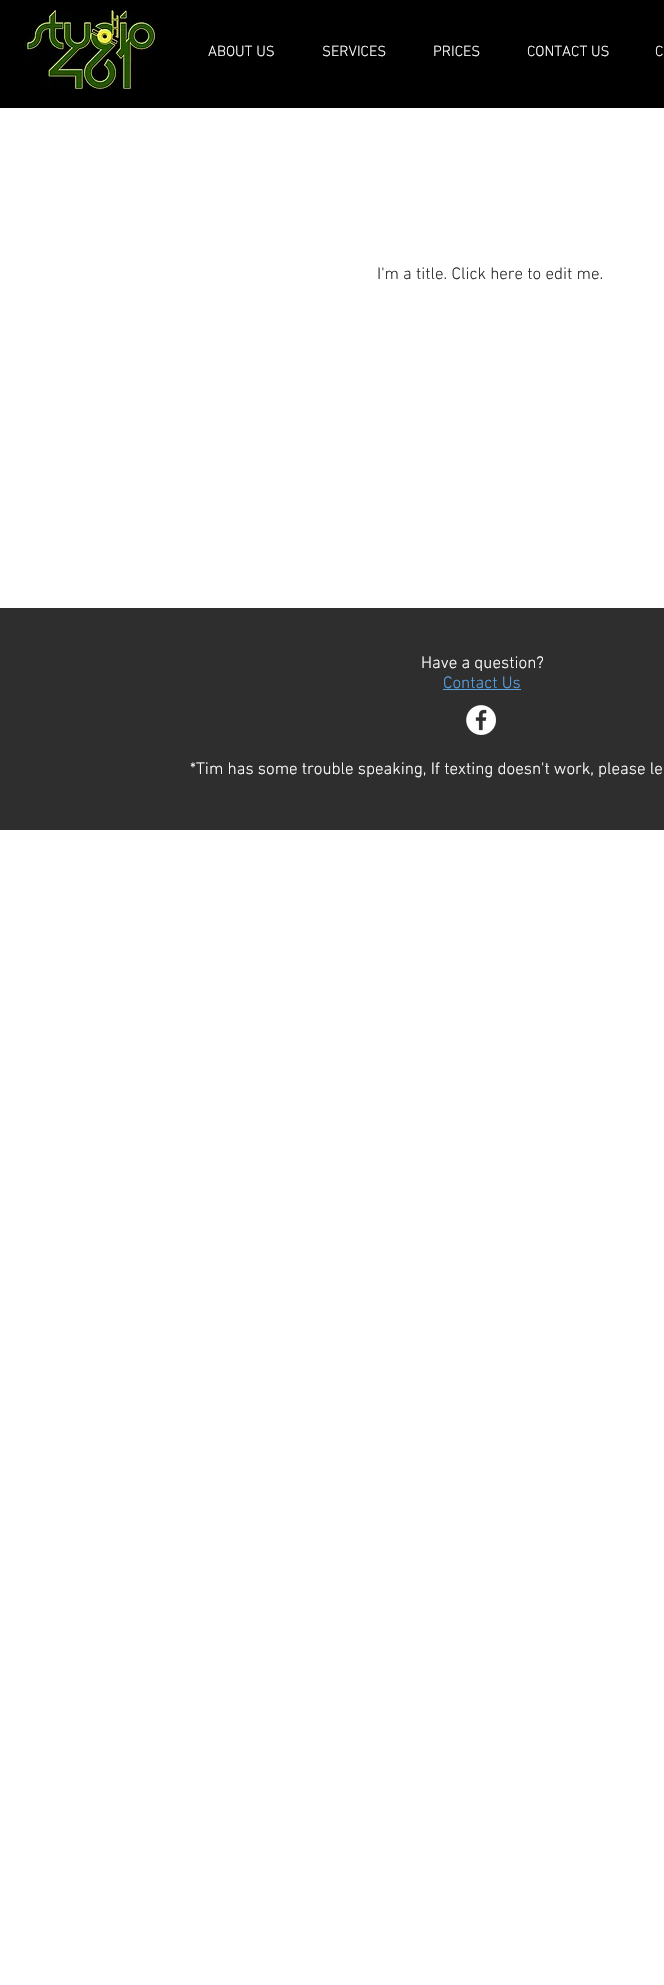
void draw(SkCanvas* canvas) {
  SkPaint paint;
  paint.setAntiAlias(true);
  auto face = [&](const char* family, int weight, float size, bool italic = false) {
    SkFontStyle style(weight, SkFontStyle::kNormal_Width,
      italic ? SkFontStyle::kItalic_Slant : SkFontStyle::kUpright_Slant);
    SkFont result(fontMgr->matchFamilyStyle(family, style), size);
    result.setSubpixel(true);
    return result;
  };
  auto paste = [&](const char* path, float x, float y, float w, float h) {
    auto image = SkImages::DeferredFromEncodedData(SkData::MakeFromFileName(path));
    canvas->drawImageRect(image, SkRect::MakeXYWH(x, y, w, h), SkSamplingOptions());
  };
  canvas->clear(0xffffffff);
  paint.setColor(0xff000000);
  canvas->drawRect(SkRect::MakeXYWH(0, 0, 664, 108), paint);
  paste("img/1.png", 24, 10, 132, 80);
  paint.setColor(0xff2f2e2e);
  canvas->drawRect(SkRect::MakeXYWH(0, 608, 664, 222), paint);
  paint.setColor(0xff59a2e3);
  canvas->drawRect(SkRect::MakeXYWH(443, 689, 78, 1), paint);
  paste("img/2.png", 466, 705, 30, 30);
  auto f0 = face("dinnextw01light", 300, 15);
  paint.setColor(0xffffffff);
  {
    const struct { const char* s; float x, y; } items[] = {
      {"ABOUT US", 208, 56},
      {"SERVICES", 322, 56},
      {"PRICES", 433, 56},
      {"CONTACT US", 527, 56},
      {"C", 655, 56},
    };
    for (auto [s, x, y] : items) {
      canvas->drawString(s, x, y, f0, paint);
    }
  }
  auto f1 = face("dinnextw01light", 300, 17);
  paint.setColor(0xff2f2e2e);
  canvas->drawString("I'm a title. Click here to edit me.", 377, 279, f1, paint);
  paint.setColor(0xffffffff);
  canvas->drawString("Have a question?", 421, 668, f1, paint);
  paint.setColor(0xff59a2e3);
  canvas->drawString("Contact Us", 443, 688, f1, paint);
  paint.setColor(0xffffffff);
  canvas->drawString("*Tim has some trouble speaking, If texting doesn't work, please le", 190, 774, f1, paint);
}
